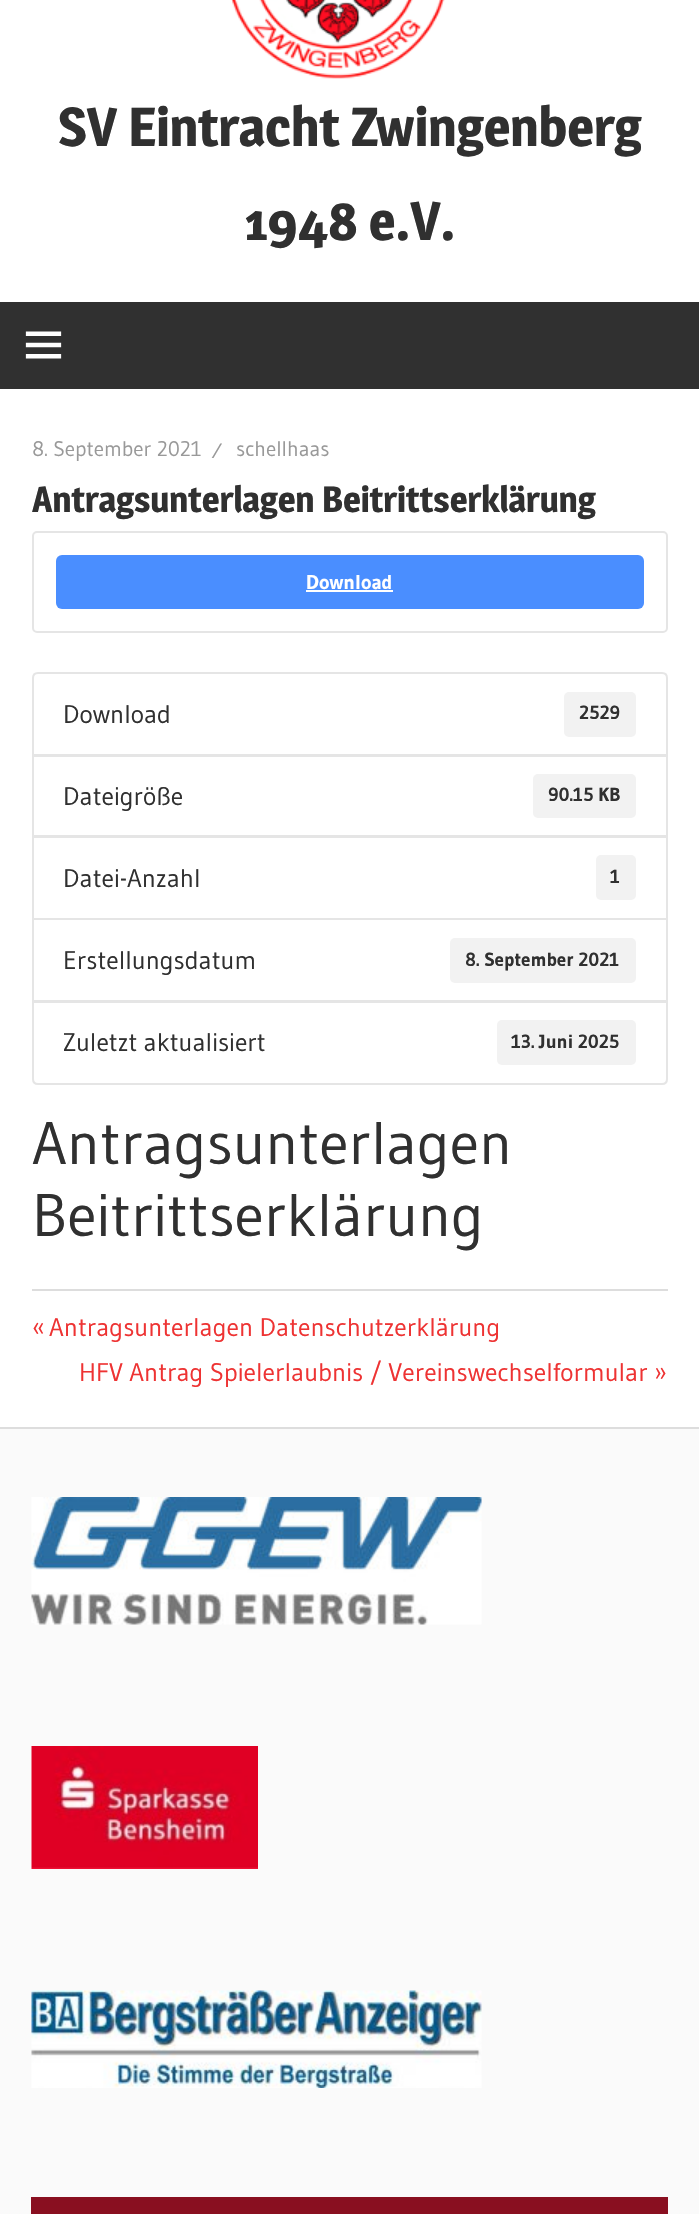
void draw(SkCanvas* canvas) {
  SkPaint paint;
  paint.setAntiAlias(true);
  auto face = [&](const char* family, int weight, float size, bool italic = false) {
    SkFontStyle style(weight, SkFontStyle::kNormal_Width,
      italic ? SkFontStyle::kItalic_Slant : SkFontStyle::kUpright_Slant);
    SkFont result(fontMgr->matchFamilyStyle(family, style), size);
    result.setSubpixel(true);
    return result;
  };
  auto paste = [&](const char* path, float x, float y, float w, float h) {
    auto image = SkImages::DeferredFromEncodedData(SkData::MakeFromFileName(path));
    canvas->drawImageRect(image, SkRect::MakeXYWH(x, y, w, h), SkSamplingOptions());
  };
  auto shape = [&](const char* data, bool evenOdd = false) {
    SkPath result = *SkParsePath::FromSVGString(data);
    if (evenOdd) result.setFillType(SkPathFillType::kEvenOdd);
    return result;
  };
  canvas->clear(0xffffffff);
  paste("img/1.png", 231, 0, 214, 79);
  paint.setColor(0xff303030);
  canvas->drawRect(SkRect::MakeXYWH(0, 302, 699, 87), paint);
  paste("img/2.png", 25, 331, 37, 28);
  paint.setStroke(true);
  paint.setStrokeWidth(2);
  paint.setColor(0xffe5e5e5);
  canvas->drawRoundRect(SkRect::MakeXYWH(33, 532, 634, 100), 4, 4, paint);
  paint.setStroke(false);
  paint.setColor(0xff4a8eff);
  canvas->drawRoundRect(SkRect::MakeXYWH(56, 555, 588, 54), 6, 6, paint);
  paint.setColor(0xffffffff);
  canvas->drawRect(SkRect::MakeXYWH(306, 590, 87, 2), paint);
  paint.setStroke(true);
  paint.setColor(0xffe5e5e5);
  canvas->drawPath(shape("M38 673H662C665 673 667 675 667 678V755H33V678C33 675 35 673 38 673Z"), paint);
  paint.setStroke(false);
  paint.setColor(0xfff2f2f2);
  canvas->drawRoundRect(SkRect::MakeXYWH(564, 692, 72, 45), 5, 5, paint);
  paint.setStroke(true);
  paint.setColor(0xffe5e5e5);
  canvas->drawRect(SkRect::MakeXYWH(33, 756, 634, 80), paint);
  paint.setStroke(false);
  paint.setColor(0xfff2f2f2);
  canvas->drawRoundRect(SkRect::MakeXYWH(533, 774, 103, 44), 5, 5, paint);
  paint.setStroke(true);
  paint.setColor(0xffe5e5e5);
  canvas->drawRect(SkRect::MakeXYWH(33, 837, 634, 82), paint);
  paint.setStroke(false);
  paint.setColor(0xfff2f2f2);
  canvas->drawRoundRect(SkRect::MakeXYWH(596, 855, 40, 45), 5, 5, paint);
  paint.setStroke(true);
  paint.setColor(0xffe5e5e5);
  canvas->drawRect(SkRect::MakeXYWH(33, 919, 634, 82), paint);
  paint.setStroke(false);
  paint.setColor(0xfff2f2f2);
  canvas->drawRoundRect(SkRect::MakeXYWH(450, 938, 186, 45), 5, 5, paint);
  paint.setColor(0xffffffff);
  canvas->drawPath(shape("M33 1002H667V1079C667 1082 665 1084 662 1084H38C35 1084 33 1082 33 1079Z"), paint);
  paint.setStroke(true);
  paint.setColor(0xffe5e5e5);
  canvas->drawPath(shape("M33 1002H667V1079C667 1082 665 1084 662 1084H38C35 1084 33 1082 33 1079Z"), paint);
  paint.setStroke(false);
  paint.setColor(0xfff2f2f2);
  canvas->drawRoundRect(SkRect::MakeXYWH(497, 1020, 139, 45), 5, 5, paint);
  {
    const struct { float x, y, w, h; SkColor color; } items[] = {
      {32, 1289, 636, 2, 0xffdddddd},
      {0, 1429, 699, 785, 0xfffafafa},
      {0, 1427, 699, 2, 0xffdddddd},
    };
    for (auto [x, y, w, h, color] : items) {
      paint.setColor(color);
      canvas->drawRect(SkRect::MakeXYWH(x, y, w, h), paint);
    }
  }
  paste("img/3.png", 31, 1497, 451, 128);
  paste("img/4.png", 31, 1746, 227, 123);
  paste("img/5.png", 31, 1990, 451, 98);
  paint.setColor(0xff890f20);
  canvas->drawRect(SkRect::MakeXYWH(31, 2197, 637, 17), paint);
  auto f0 = face("Magra", 700, 54);
  paint.setColor(0xff303030);
  canvas->drawString("SV Eintracht Zwingenberg", 58, 146, f0, paint);
  canvas->drawString("1948 e.V.", 244, 240, f0, paint);
  auto f1 = face("Gudea", 400, 21);
  paint.setColor(0xff999999);
  {
    const struct { const char* s; float x, y; } items[] = {
      {"8. September 2021", 32, 456},
      {"⁄", 212, 458},
      {"schellhaas", 236, 456},
    };
    for (auto [s, x, y] : items) {
      canvas->drawString(s, x, y, f1, paint);
    }
  }
  auto f2 = face("Magra", 700, 36);
  paint.setColor(0xff303030);
  canvas->drawString("Antragsunterlagen Beitrittserklärung", 32, 512, f2, paint);
  auto f3 = face("Gudea", 700, 20);
  paint.setColor(0xffffffff);
  canvas->drawString("Download", 306, 589, f3, paint);
  auto f4 = face("Gudea", 400, 25.5f);
  paint.setColor(0xff303030);
  canvas->drawString("Download", 63, 723, f4, paint);
  auto f5 = face("Gudea", 700, 19);
  canvas->drawString("2529", 579, 719, f5, paint);
  canvas->drawString("Dateigröße", 63, 805, f4, paint);
  canvas->drawString("90.15 KB", 548, 801, f5, paint);
  canvas->drawString("Datei-Anzahl", 63, 887, f4, paint);
  canvas->drawString("1", 610, 883, f5, paint);
  canvas->drawString("Erstellungsdatum", 63, 969, f4, paint);
  canvas->drawString("8. September 2021", 465, 966, f5, paint);
  canvas->drawString("Zuletzt aktualisiert", 63, 1051, f4, paint);
  canvas->drawString("13. Juni 2025", 511, 1048, f5, paint);
  auto f6 = face("Gudea", 400, 60);
  canvas->drawString("Antragsunterlagen", 32, 1164, f6, paint);
  canvas->drawString("Beitrittserklärung", 32, 1236, f6, paint);
  paint.setColor(0xffee3333);
  {
    const struct { const char* s; float x, y; } items[] = {
      {"«", 32, 1336},
      {"Antragsunterlagen Datenschutzerklärung", 49, 1336},
      {"HFV Antrag Spielerlaubnis / Vereinswechselformular", 79, 1381},
      {"»", 654, 1381},
    };
    for (auto [s, x, y] : items) {
      canvas->drawString(s, x, y, f4, paint);
    }
  }
}
